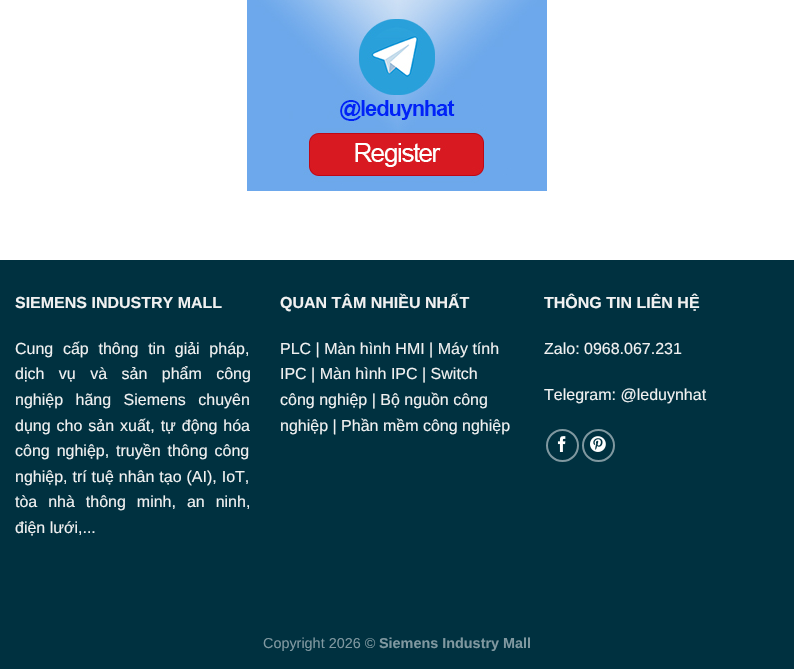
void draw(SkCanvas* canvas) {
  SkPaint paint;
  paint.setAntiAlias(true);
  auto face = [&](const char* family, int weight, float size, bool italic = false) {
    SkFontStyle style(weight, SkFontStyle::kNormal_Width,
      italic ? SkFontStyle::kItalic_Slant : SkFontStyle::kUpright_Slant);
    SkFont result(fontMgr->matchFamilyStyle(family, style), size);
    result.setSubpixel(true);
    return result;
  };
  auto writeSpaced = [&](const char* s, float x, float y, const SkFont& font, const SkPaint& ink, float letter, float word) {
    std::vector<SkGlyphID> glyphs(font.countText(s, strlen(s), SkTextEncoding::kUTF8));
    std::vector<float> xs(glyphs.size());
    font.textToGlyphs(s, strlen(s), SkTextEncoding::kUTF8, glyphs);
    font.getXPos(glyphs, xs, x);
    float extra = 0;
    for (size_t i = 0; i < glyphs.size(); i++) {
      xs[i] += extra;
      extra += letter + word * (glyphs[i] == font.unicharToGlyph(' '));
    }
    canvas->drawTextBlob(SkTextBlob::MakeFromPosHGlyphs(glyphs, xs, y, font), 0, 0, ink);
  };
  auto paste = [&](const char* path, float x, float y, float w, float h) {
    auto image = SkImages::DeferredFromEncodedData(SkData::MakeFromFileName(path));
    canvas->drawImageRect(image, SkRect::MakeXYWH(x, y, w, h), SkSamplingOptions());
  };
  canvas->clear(0xffffffff);
  paste("img/1.png", 247, 0, 300, 191);
  paint.setColor(0xff003140);
  canvas->drawRect(SkRect::MakeXYWH(0, 260, 794, 409), paint);
  paint.setStroke(true);
  paint.setStrokeWidth(2);
  paint.setColor(0xff8098a0);
  canvas->drawCircle(562.5f, 445.5f, 15.5f, paint);
  paste("img/2.png", 557, 436, 9, 16);
  canvas->drawCircle(598.5f, 445.5f, 15.5f, paint);
  paste("img/3.png", 590, 436, 16, 16);
  auto f0 = face("Liberation Sans", 700, 16);
  paint.setStroke(false);
  paint.setColor(0xfff1f1f1);
  canvas->drawString("SIEMENS INDUSTRY MALL", 15, 308, f0, paint);
  auto f1 = face("Liberation Sans", 400, 16);
  writeSpaced("Cung cấp thông tin giải pháp,", 15, 354, f1, paint, 0, 5.25f);
  writeSpaced("dịch vụ và sản phẩm công", 15, 379, f1, paint, 0, 10);
  writeSpaced("nghiệp hãng Siemens chuyên", 15, 405, f1, paint, 0, 8);
  writeSpaced("dụng cho sản xuất, tự động hóa", 15, 431, f1, paint, 0, 1.5f);
  writeSpaced("công nghiệp, truyền thông công", 15, 456, f1, paint, 0, 2.5f);
  writeSpaced("nghiệp, trí tuệ nhân tạo (AI), IoT,", 15, 482, f1, paint, 0, 0.5f);
  writeSpaced("tòa nhà thông minh, an ninh,", 15, 507, f1, paint, 0, 6.5f);
  canvas->drawString("điện lưới,...", 15, 533, f1, paint);
  canvas->drawString("QUAN TÂM NHIỀU NHẤT", 280, 308, f0, paint);
  {
    const struct { const char* s; float x, y; } items[] = {
      {"PLC | Màn hình HMI | Máy tính", 280, 354},
      {"IPC | Màn hình IPC | Switch", 280, 379},
      {"công nghiệp | Bộ nguồn công", 280, 405},
      {"nghiệp | Phần mềm công nghiệp", 280, 431},
    };
    for (auto [s, x, y] : items) {
      canvas->drawString(s, x, y, f1, paint);
    }
  }
  canvas->drawString("THÔNG TIN LIÊN HỆ", 544, 308, f0, paint);
  canvas->drawString("Zalo: 0968.067.231", 544, 354, f1, paint);
  canvas->drawString("Telegram: @leduynhat", 544, 400, f1, paint);
  auto f2 = face("Liberation Sans", 400, 14.4f);
  paint.setColor(0xff8098a0);
  canvas->drawString("Copyright 2026 ©", 263, 648, f2, paint);
  auto f3 = face("Liberation Sans", 700, 14.4f);
  canvas->drawString("Siemens Industry Mall", 379, 648, f3, paint);
}
